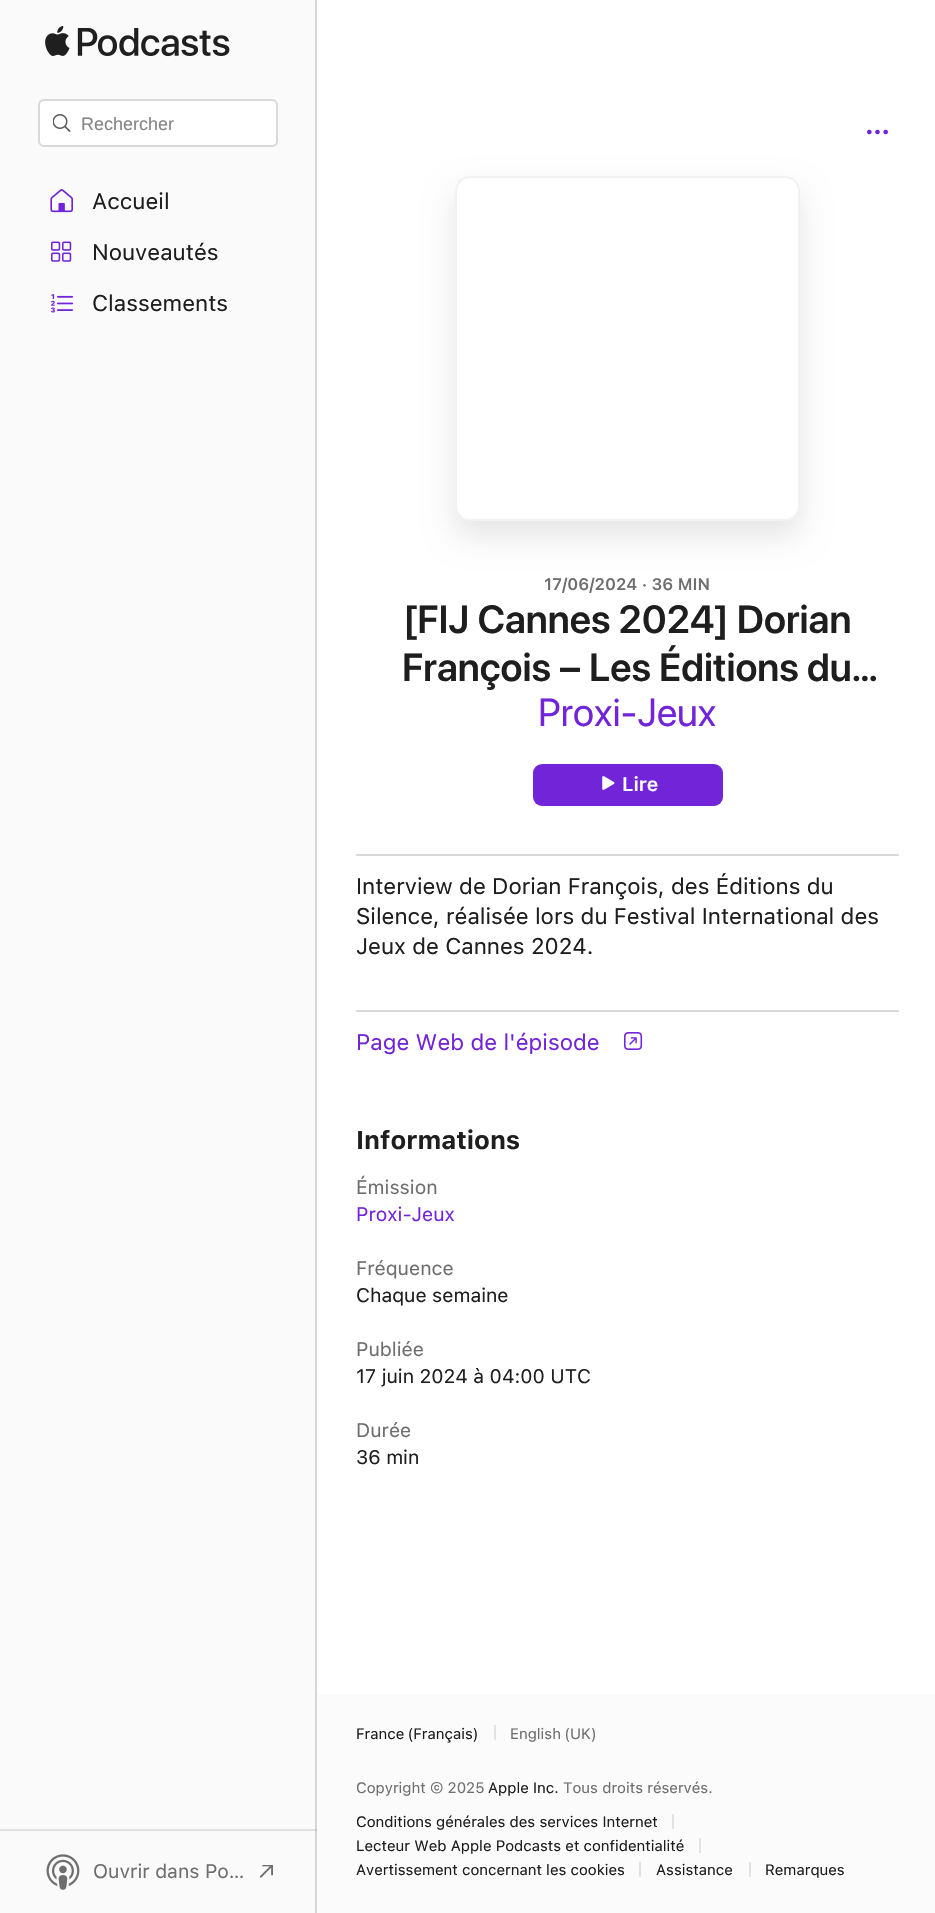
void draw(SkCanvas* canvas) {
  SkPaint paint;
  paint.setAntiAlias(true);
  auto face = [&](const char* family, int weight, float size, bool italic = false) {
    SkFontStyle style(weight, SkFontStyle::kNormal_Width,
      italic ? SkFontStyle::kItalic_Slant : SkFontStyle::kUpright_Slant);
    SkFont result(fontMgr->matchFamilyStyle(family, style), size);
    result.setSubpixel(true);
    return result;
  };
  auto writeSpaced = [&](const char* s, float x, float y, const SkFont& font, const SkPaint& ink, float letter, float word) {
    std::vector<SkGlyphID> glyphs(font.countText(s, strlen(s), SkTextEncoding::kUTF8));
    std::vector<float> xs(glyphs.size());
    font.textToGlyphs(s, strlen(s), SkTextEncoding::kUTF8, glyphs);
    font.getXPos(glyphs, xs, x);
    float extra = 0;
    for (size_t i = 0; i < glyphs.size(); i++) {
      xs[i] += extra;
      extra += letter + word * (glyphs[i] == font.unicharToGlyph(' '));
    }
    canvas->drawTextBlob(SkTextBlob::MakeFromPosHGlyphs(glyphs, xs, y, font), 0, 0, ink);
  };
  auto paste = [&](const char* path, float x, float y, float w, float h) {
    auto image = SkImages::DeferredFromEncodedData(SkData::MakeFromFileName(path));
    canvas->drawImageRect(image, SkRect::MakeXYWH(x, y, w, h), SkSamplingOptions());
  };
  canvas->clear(0xffffffff);
  {
    const struct { float x, y, w, h; SkColor color; } items[] = {
      {0, 0, 315, 1913, 0xfffafafa},
      {0, 1829, 317, 2, 0xffe1e1e1},
      {315, 0, 2, 1913, 0xffd5d5d5},
      {315, 1829, 2, 2, 0xffc0c0c0},
    };
    for (auto [x, y, w, h, color] : items) {
      paint.setColor(color);
      canvas->drawRect(SkRect::MakeXYWH(x, y, w, h), paint);
    }
  }
  paste("img/1.png", 45, 26, 185, 31);
  paint.setColor(0xffffffff);
  canvas->drawRoundRect(SkRect::MakeXYWH(39, 100, 238, 46), 5, 5, paint);
  paint.setStroke(true);
  paint.setStrokeWidth(2);
  paint.setColor(0xffd9d9d9);
  canvas->drawRoundRect(SkRect::MakeXYWH(39, 100, 238, 46), 5, 5, paint);
  paste("img/2.png", 53, 114, 18, 18);
  paste("img/3.png", 50, 189, 23, 24);
  paste("img/4.png", 51, 241, 21, 21);
  paste("img/5.png", 51, 294, 23, 19);
  paste("img/6.png", 46, 1854, 34, 36);
  paste("img/7.png", 260, 1865, 13, 13);
  paste("img/8.png", 867, 129, 21, 6);
  paint.setStroke(false);
  paint.setColor(0x1a000000);
  paint.setMaskFilter(SkMaskFilter::MakeBlur(kNormal_SkBlurStyle, 15));
  canvas->drawRoundRect(SkRect::MakeXYWH(455, 191, 345, 345), 15, 15, paint);
  paint.setMaskFilter(nullptr);
  paint.setColor(0xffffffff);
  canvas->drawRoundRect(SkRect::MakeXYWH(455, 176, 345, 345), 15, 15, paint);
  paint.setStroke(true);
  paint.setColor(0x1a808080);
  canvas->drawRoundRect(SkRect::MakeXYWH(456, 177, 343, 343), 14, 14, paint);
  paint.setStroke(false);
  paint.setColor(0xff7224d8);
  canvas->drawRoundRect(SkRect::MakeXYWH(533, 764, 190, 42), 9, 9, paint);
  paste("img/9.png", 602, 776, 13, 14);
  paint.setColor(0xffd9d9d9);
  canvas->drawRect(SkRect::MakeXYWH(356, 854, 543, 2), paint);
  canvas->drawRect(SkRect::MakeXYWH(356, 1010, 543, 2), paint);
  paste("img/10.png", 624, 1032, 19, 18);
  {
    const struct { float x, y, w, h; SkColor color; } items[] = {
      {318, 1694, 617, 219, 0xfffbfbfb},
      {494, 1725, 2, 15, 0xffe2e2e2},
      {672, 1814, 2, 15, 0xffe2e2e2},
      {699, 1838, 2, 15, 0xffe2e2e2},
      {639, 1862, 2, 15, 0xffe2e2e2},
      {749, 1862, 2, 15, 0xffe2e2e2},
    };
    for (auto [x, y, w, h, color] : items) {
      paint.setColor(color);
      canvas->drawRect(SkRect::MakeXYWH(x, y, w, h), paint);
    }
  }
  auto f0 = face("Liberation Sans", 400, 18);
  paint.setColor(0xff858585);
  canvas->drawString("Rechercher", 81, 130, f0, paint);
  auto f1 = face("SF", 400, 22.5f);
  paint.setColor(0xff1e1e1e);
  {
    const struct { const char* s; float x, y; } items[] = {
      {"Accueil", 92, 209},
      {"Nouveautés", 92, 260},
      {"Classements", 92, 311},
    };
    for (auto [s, x, y] : items) {
      canvas->drawString(s, x, y, f1, paint);
    }
  }
  auto f2 = face("SF", 400, 19.5f);
  paint.setColor(0xff6e6e6e);
  canvas->drawString("Ouvrir dans Po…", 93, 1878, f2, paint);
  auto f3 = face("SF", 600, 16.5f);
  canvas->drawString("17/06/2024 · 36 MIN", 544, 590, f3, paint);
  auto f4 = face("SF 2", 600, 39);
  paint.setColor(0xff1e1e1e);
  canvas->drawString("[FIJ Cannes 2024] Dorian", 403, 633, f4, paint);
  canvas->drawString("François – Les Éditions du…", 402, 681, f4, paint);
  auto f5 = face("SF 2", 400, 39);
  paint.setColor(0xff7224d8);
  canvas->drawString("Proxi-Jeux", 538, 726, f5, paint);
  auto f6 = face("SF", 600, 19.5f);
  paint.setColor(0xffffffff);
  canvas->drawString("Lire", 622, 791, f6, paint);
  paint.setColor(0xff1e1e1e);
  {
    const struct { const char* s; float x, y; } items[] = {
      {"Interview de Dorian François, des Éditions du", 356, 894},
      {"Silence, réalisée lors du Festival International des", 356, 924},
      {"Jeux de Cannes 2024.", 356, 954},
    };
    for (auto [s, x, y] : items) {
      canvas->drawString(s, x, y, f1, paint);
    }
  }
  paint.setColor(0xff7224d8);
  canvas->drawString("Page Web de l'épisode", 356, 1050, f1, paint);
  auto f7 = face("SF", 700, 25.5f);
  paint.setColor(0xff1e1e1e);
  canvas->drawString("Informations", 356, 1149, f7, paint);
  paint.setColor(0xff6e6e6e);
  canvas->drawString("Émission", 356, 1194, f2, paint);
  paint.setColor(0xff7224d8);
  canvas->drawString("Proxi-Jeux", 356, 1221, f2, paint);
  paint.setColor(0xff6e6e6e);
  canvas->drawString("Fréquence", 356, 1275, f2, paint);
  paint.setColor(0xff1e1e1e);
  canvas->drawString("Chaque semaine", 356, 1302, f2, paint);
  paint.setColor(0xff6e6e6e);
  canvas->drawString("Publiée", 356, 1356, f2, paint);
  paint.setColor(0xff1e1e1e);
  canvas->drawString("17 juin 2024 à 04:00 UTC", 356, 1383, f2, paint);
  paint.setColor(0xff6e6e6e);
  canvas->drawString("Durée", 356, 1437, f2, paint);
  paint.setColor(0xff1e1e1e);
  canvas->drawString("36 min", 356, 1464, f2, paint);
  auto f8 = face("SF", 400, 15);
  writeSpaced("France (Français)", 356, 1739, f8, paint, 0, -1);
  paint.setColor(0xff6e6e6e);
  writeSpaced("English (UK)", 510, 1739, f8, paint, 0, -1);
  canvas->drawString("Copyright © 2025", 356, 1793, f8, paint);
  paint.setColor(0xff1e1e1e);
  canvas->drawString("Apple Inc.", 488, 1793, f8, paint);
  paint.setColor(0xff6e6e6e);
  canvas->drawString("Tous droits réservés.", 563, 1793, f8, paint);
  paint.setColor(0xff1e1e1e);
  {
    const struct { const char* s; float x, y; } items[] = {
      {"Conditions générales des services Internet", 356, 1827},
      {"Lecteur Web Apple Podcasts et confidentialité", 356, 1851},
      {"Avertissement concernant les cookies", 356, 1875},
      {"Assistance", 656, 1875},
      {"Remarques", 765, 1875},
    };
    for (auto [s, x, y] : items) {
      canvas->drawString(s, x, y, f8, paint);
    }
  }
}
